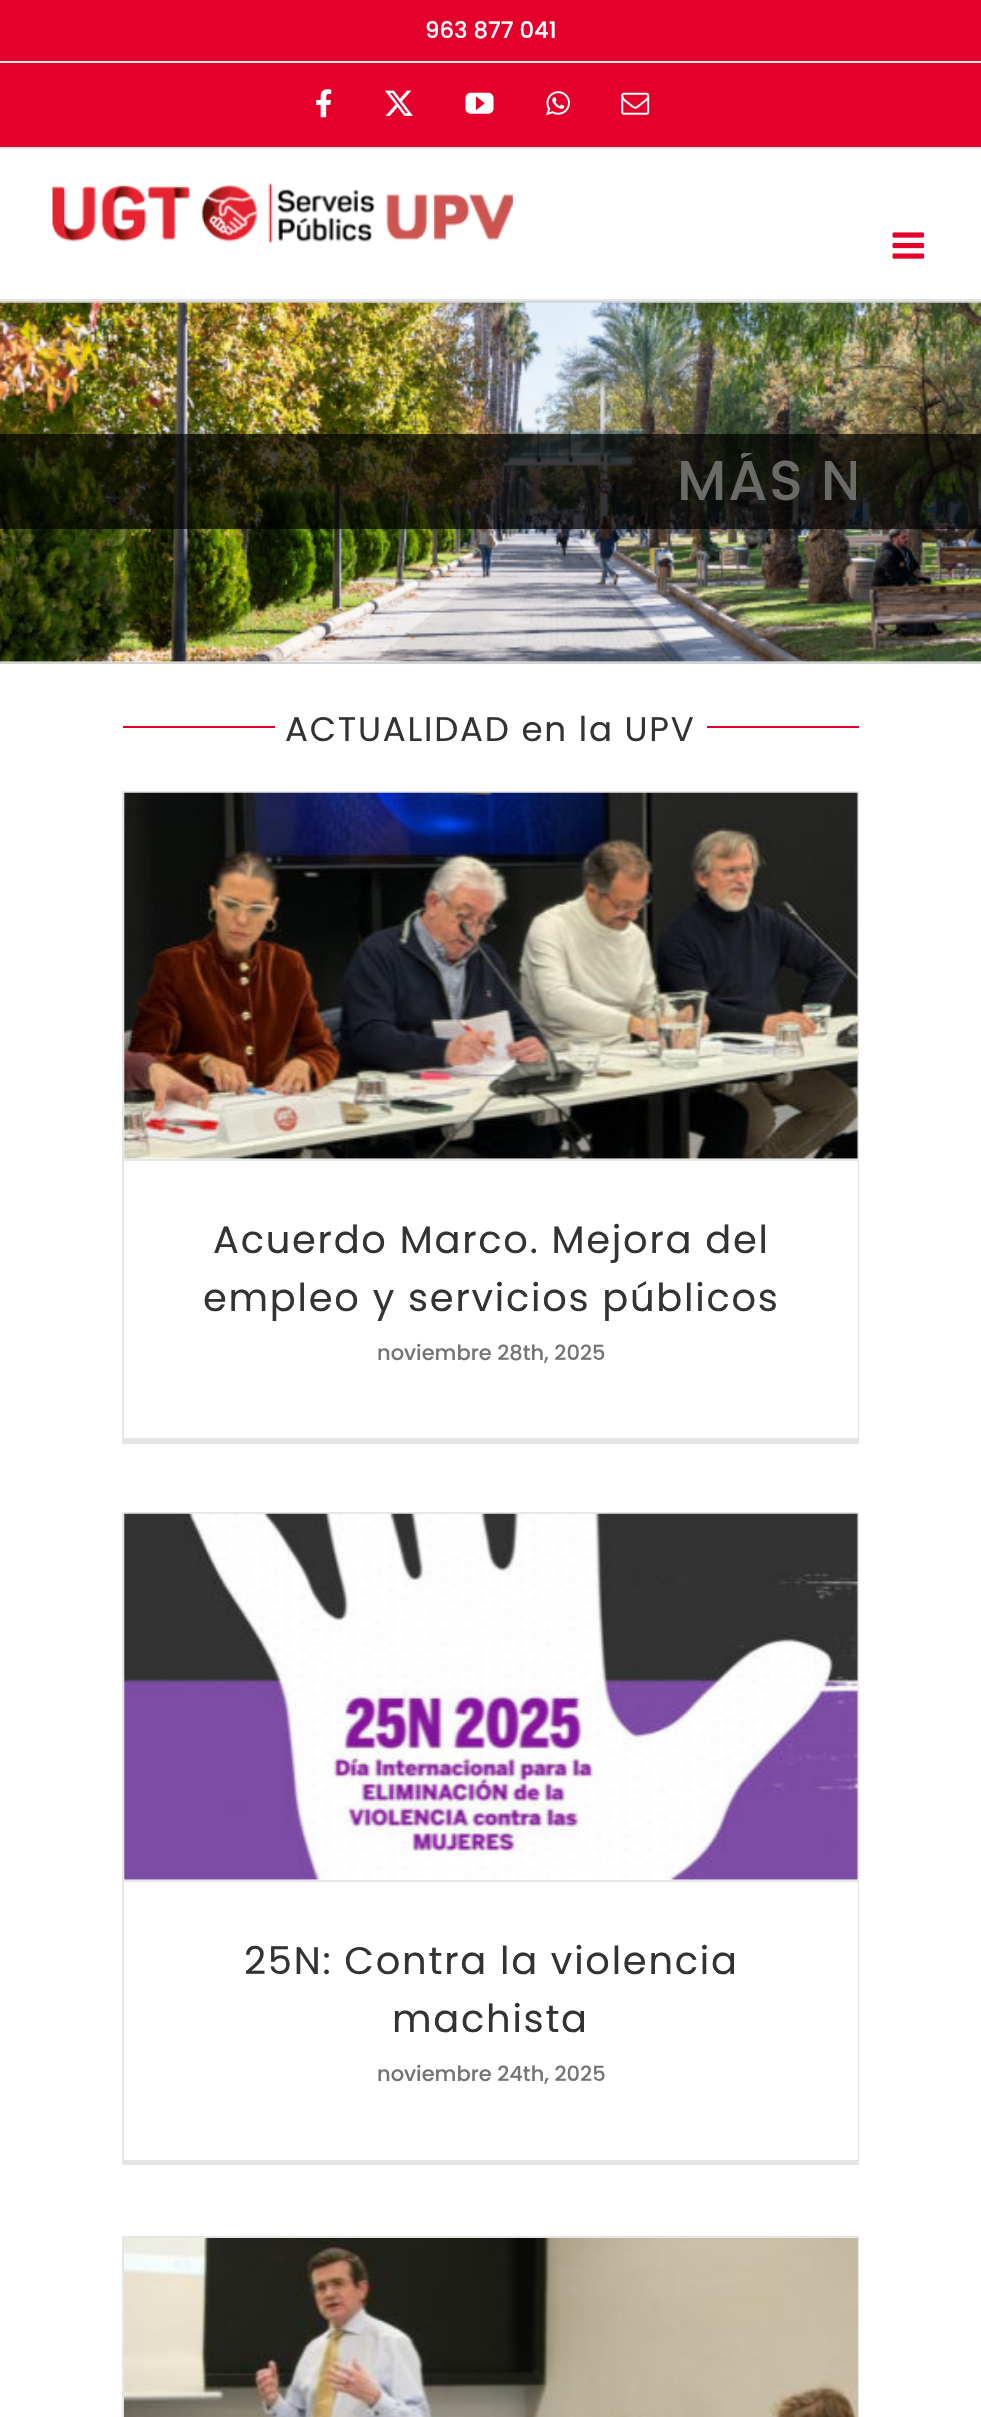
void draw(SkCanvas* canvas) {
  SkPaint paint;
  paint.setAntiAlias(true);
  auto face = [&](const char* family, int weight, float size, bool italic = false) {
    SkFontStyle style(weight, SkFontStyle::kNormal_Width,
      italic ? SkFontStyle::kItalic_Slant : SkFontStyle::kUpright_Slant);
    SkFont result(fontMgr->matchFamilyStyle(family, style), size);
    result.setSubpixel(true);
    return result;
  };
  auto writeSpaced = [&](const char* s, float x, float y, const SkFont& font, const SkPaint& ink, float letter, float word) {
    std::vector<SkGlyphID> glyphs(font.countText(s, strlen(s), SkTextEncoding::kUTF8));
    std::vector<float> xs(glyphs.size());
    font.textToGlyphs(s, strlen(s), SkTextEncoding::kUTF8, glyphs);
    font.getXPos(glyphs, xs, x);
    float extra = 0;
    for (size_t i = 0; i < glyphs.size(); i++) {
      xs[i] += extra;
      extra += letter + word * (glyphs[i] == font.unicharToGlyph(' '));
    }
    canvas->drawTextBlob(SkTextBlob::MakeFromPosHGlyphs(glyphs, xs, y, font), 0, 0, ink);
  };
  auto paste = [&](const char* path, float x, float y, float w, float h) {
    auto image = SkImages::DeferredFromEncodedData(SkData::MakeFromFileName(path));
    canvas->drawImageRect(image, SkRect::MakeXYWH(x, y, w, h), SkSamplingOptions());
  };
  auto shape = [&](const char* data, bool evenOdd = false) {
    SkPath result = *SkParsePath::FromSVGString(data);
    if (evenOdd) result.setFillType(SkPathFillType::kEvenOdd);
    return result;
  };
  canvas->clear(0xffffffff);
  {
    const struct { float x, y, w, h; SkColor color; } items[] = {
      {0, 0, 981, 147, 0xffe4002b},
      {0, 147, 981, 2, 0xffe5e5e5},
      {0, 61, 981, 2, 0xffe5e5e5},
    };
    for (auto [x, y, w, h, color] : items) {
      paint.setColor(color);
      canvas->drawRect(SkRect::MakeXYWH(x, y, w, h), paint);
    }
  }
  paste("img/1.png", 316, 89, 16, 29);
  paste("img/2.png", 385, 90, 28, 26);
  paste("img/3.png", 465, 92, 29, 22);
  paste("img/4.png", 546, 91, 24, 25);
  paste("img/5.png", 621, 92, 29, 23);
  canvas->drawRect(SkRect::MakeXYWH(0, 299, 981, 2), paint);
  paste("img/6.png", 52, 183, 461, 61);
  paste("img/7.png", 892, 232, 32, 27);
  paint.setColor(0xffd2d3d4);
  canvas->drawRect(SkRect::MakeXYWH(0, 301, 981, 2), paint);
  canvas->drawRect(SkRect::MakeXYWH(0, 662, 981, 2), paint);
  paste("img/8.png", 0, 302, 981, 360);
  {
    const struct { float x, y, w, h; SkColor color; } items[] = {
      {0, 434, 981, 95, 0xb3000000},
      {123, 726, 152, 2, 0xffe4002b},
      {707, 726, 152, 2, 0xffe4002b},
    };
    for (auto [x, y, w, h, color] : items) {
      paint.setColor(color);
      canvas->drawRect(SkRect::MakeXYWH(x, y, w, h), paint);
    }
  }
  paint.setColor(0xffe6e6e6);
  canvas->drawPath(shape("M122 791H859L858 793H124Z"), paint);
  paint.setColor(0x1a000000);
  canvas->drawPath(shape("M859 791V1444L858 1438V793Z"), paint);
  canvas->drawPath(shape("M859 1444H122L124 1438H858Z"), paint);
  canvas->drawPath(shape("M122 1444V791L124 793V1438Z"), paint);
  paint.setColor(0xffe6e6e6);
  canvas->drawRect(SkRect::MakeXYWH(124, 1159, 734, 2), paint);
  paste("img/9.png", 124, 792, 734, 367);
  canvas->drawPath(shape("M122 1512H859L858 1514H124Z"), paint);
  paint.setColor(0x1a000000);
  canvas->drawPath(shape("M859 1512V2165L858 2160V1514Z"), paint);
  canvas->drawPath(shape("M859 2165H122L124 2160H858Z"), paint);
  canvas->drawPath(shape("M122 2165V1512L124 1514V2160Z"), paint);
  paint.setColor(0xffe6e6e6);
  canvas->drawRect(SkRect::MakeXYWH(124, 1880, 734, 2), paint);
  paste("img/10.png", 124, 1513, 734, 367);
  canvas->drawPath(shape("M122 2236H859L858 2238H124Z"), paint);
  paint.setColor(0x1a000000);
  canvas->drawPath(shape("M859 2236V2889L858 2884V2238Z"), paint);
  canvas->drawPath(shape("M122 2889V2236L124 2238V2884Z"), paint);
  paste("img/11.png", 124, 2238, 734, 179);
  auto f0 = face("Poppins", 500, 22.75f);
  paint.setColor(0xffffffff);
  canvas->drawString("963 877 041", 425, 38, f0, paint);
  canvas->save();
  canvas->clipRect(SkRect::MakeXYWH(124, 453, 732, 56));
  auto f1 = face("Poppins", 500, 56);
  paint.setColor(0xff6a6a66);
  writeSpaced("MÁS N", 677, 500, f1, paint, 1.75f, 0);
  canvas->restore();
  auto f2 = face("Poppins", 400, 34.1f);
  paint.setColor(0xff333333);
  writeSpaced("ACTUALIDAD en la UPV", 285, 741, f2, paint, 1.75f, 0);
  auto f3 = face("Poppins", 400, 38.4f);
  writeSpaced("Acuerdo Marco. Mejora del", 213, 1253, f3, paint, 1.75f, 0);
  writeSpaced("empleo y servicios públicos", 203, 1311, f3, paint, 1.75f, 0);
  auto f4 = face("Poppins", 500, 21);
  paint.setColor(0xff747474);
  canvas->drawString("noviembre 28th, 2025", 377, 1360, f4, paint);
  paint.setColor(0xff333333);
  writeSpaced("25N: Contra la violencia", 244, 1974, f3, paint, 1.75f, 0);
  writeSpaced("machista", 392, 2032, f3, paint, 1.75f, 0);
  paint.setColor(0xff747474);
  canvas->drawString("noviembre 24th, 2025", 377, 2081, f4, paint);
}
